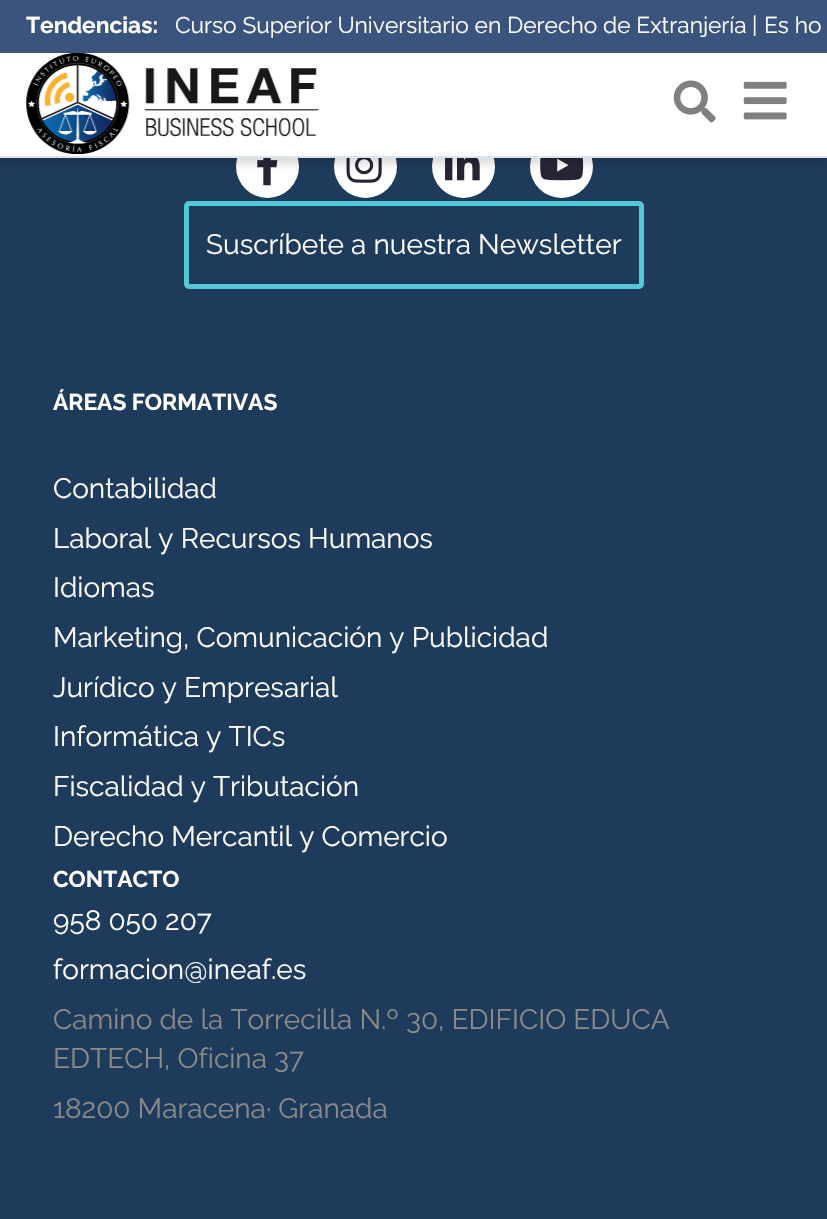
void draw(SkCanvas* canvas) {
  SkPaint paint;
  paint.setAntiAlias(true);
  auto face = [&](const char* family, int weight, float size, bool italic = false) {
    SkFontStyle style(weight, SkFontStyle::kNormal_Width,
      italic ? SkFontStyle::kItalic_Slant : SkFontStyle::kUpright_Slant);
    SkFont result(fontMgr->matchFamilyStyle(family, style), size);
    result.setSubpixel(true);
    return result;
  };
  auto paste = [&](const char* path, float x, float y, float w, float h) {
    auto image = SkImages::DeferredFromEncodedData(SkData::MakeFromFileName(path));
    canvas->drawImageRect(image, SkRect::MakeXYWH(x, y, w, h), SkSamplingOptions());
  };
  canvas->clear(0xff1f3b5b);
  paint.setColor(0xffffffff);
  canvas->drawCircle(267.5f, 166.5f, 31.5f, paint);
  paste("img/4.png", 257, 158, 21, 28);
  canvas->drawCircle(365.5f, 166.5f, 31.5f, paint);
  paste("img/5.png", 346, 158, 36, 25);
  canvas->drawCircle(463.5f, 166.5f, 31.5f, paint);
  paste("img/6.png", 445, 158, 35, 23);
  canvas->drawCircle(561.5f, 166.5f, 31.5f, paint);
  paste("img/7.png", 540, 158, 44, 23);
  paint.setColor(0x29000000);
  paint.setMaskFilter(SkMaskFilter::MakeBlur(kNormal_SkBlurStyle, 5));
  canvas->drawRect(SkRect::MakeXYWH(0, 5, 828, 158), paint);
  paint.setMaskFilter(nullptr);
  {
    const struct { float x, y, w, h; SkColor color; } items[] = {
      {0, 0, 827, 53, 0xff3a547e},
      {0, 53, 827, 103, 0xffffffff},
      {0, 156, 827, 2, 0xffdae5ea},
    };
    for (auto [x, y, w, h, color] : items) {
      paint.setColor(color);
      canvas->drawRect(SkRect::MakeXYWH(x, y, w, h), paint);
    }
  }
  paste("img/1.png", 26, 53, 293, 101);
  paste("img/2.png", 673, 80, 43, 43);
  paste("img/3.png", 743, 81, 44, 39);
  paint.setStroke(true);
  paint.setStrokeWidth(5);
  paint.setColor(0xff54c9d6);
  canvas->drawRoundRect(SkRect::MakeXYWH(186.5f, 203.5f, 455, 83), 2.5f, 2.5f, paint);
  auto f0 = face("Raleway", 700, 22.75f);
  paint.setStroke(false);
  paint.setColor(0xffffffff);
  canvas->drawString("Tendencias:", 26, 33, f0, paint);
  auto f1 = face("Raleway", 400, 22.75f);
  {
    const struct { const char* s; float x, y; } items[] = {
      {"Curso Superior Universitario en Derecho de Extranjería", 175, 33},
      {"|", 752, 33},
      {"Es ho", 764, 33},
    };
    for (auto [s, x, y] : items) {
      canvas->drawString(s, x, y, f1, paint);
    }
  }
  auto f2 = face("Raleway", 400, 28);
  canvas->drawString("Suscríbete a nuestra Newsletter", 206, 254, f2, paint);
  canvas->drawString("ÁREAS FORMATIVAS", 53, 410, f0, paint);
  {
    const struct { const char* s; float x, y; } items[] = {
      {"Contabilidad", 53, 498},
      {"Laboral y Recursos Humanos", 53, 548},
      {"Idiomas", 53, 597},
      {"Marketing, Comunicación y Publicidad", 53, 647},
      {"Jurídico y Empresarial", 53, 697},
      {"Informática y TICs", 53, 746},
      {"Fiscalidad y Tributación", 53, 796},
      {"Derecho Mercantil y Comercio", 53, 846},
    };
    for (auto [s, x, y] : items) {
      canvas->drawString(s, x, y, f2, paint);
    }
  }
  canvas->drawString("CONTACTO", 53, 887, f0, paint);
  canvas->drawString("958 050 207", 53, 930, f2, paint);
  canvas->drawString("formacion@ineaf.es", 53, 979, f2, paint);
  paint.setColor(0xff8a8a8a);
  {
    const struct { const char* s; float x, y; } items[] = {
      {"Camino de la Torrecilla N.º 30, EDIFICIO EDUCA", 53, 1029},
      {"EDTECH, Oficina 37", 53, 1068},
      {"18200 Maracena· Granada", 53, 1118},
    };
    for (auto [s, x, y] : items) {
      canvas->drawString(s, x, y, f2, paint);
    }
  }
}
